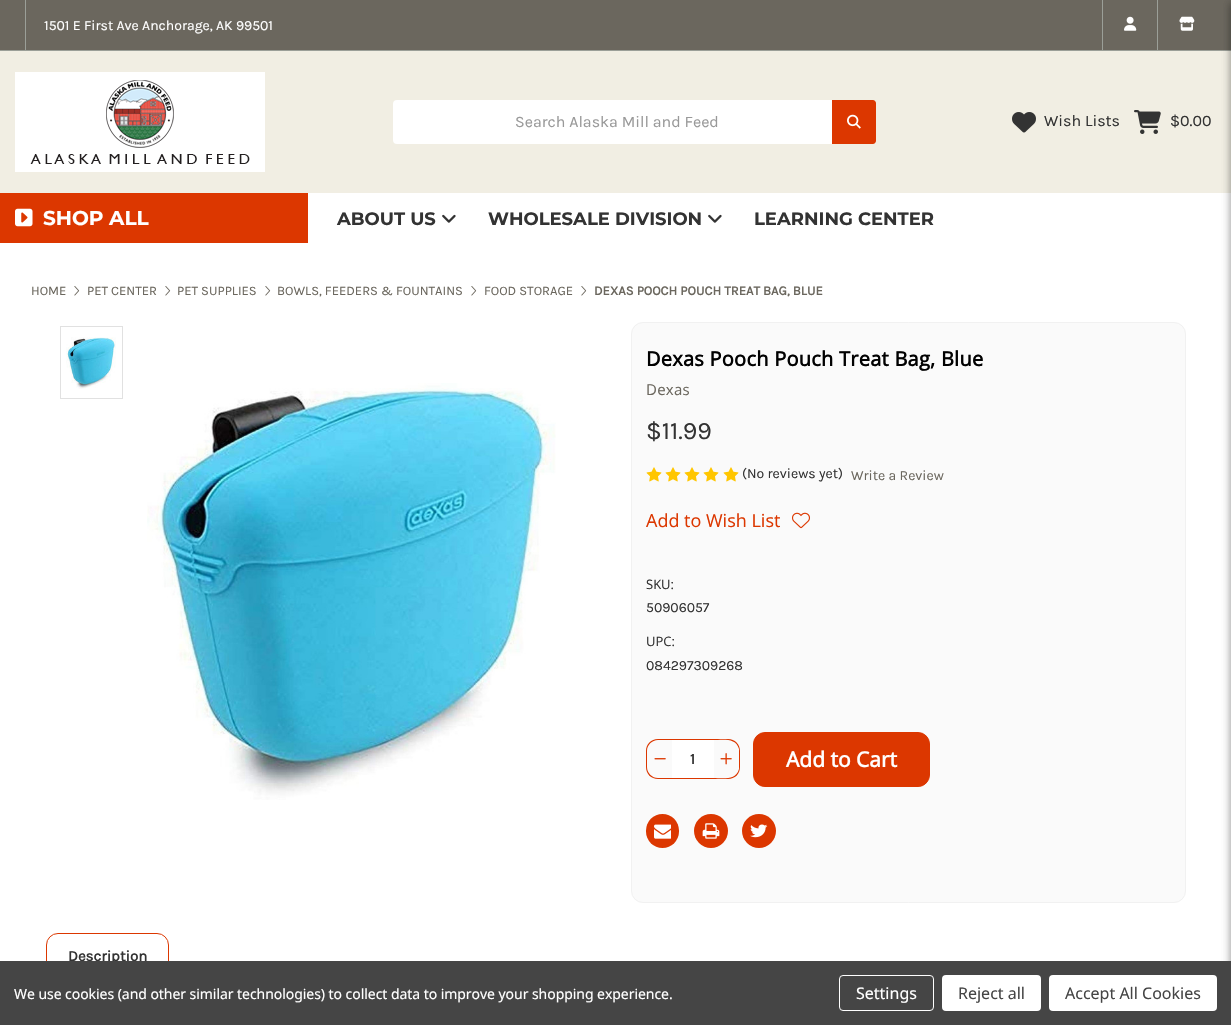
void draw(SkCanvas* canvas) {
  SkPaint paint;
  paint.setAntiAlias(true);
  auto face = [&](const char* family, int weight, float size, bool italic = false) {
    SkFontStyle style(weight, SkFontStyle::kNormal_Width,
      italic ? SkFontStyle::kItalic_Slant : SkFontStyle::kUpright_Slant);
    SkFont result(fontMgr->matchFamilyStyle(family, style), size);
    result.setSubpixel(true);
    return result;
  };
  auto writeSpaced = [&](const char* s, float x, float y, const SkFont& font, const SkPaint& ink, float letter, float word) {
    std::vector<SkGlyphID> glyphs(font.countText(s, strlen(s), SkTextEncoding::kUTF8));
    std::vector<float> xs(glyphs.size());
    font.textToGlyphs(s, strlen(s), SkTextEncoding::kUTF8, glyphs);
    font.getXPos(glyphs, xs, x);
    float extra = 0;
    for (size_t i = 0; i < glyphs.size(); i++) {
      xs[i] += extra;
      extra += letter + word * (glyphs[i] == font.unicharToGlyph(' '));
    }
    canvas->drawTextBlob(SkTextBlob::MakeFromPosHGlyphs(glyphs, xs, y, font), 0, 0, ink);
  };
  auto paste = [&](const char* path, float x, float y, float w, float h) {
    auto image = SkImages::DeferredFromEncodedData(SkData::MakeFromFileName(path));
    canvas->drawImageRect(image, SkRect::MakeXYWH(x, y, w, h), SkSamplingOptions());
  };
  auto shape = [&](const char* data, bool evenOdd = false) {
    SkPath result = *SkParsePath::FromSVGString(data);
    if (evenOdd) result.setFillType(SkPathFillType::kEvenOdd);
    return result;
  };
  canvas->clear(0xffffffff);
  {
    const struct { float x, y, w, h; SkColor color; } items[] = {
      {0, 51, 1231, 142, 0xfff1eee3},
      {0, 0, 1231, 50, 0xff6b675e},
      {0, 50, 1231, 1, 0xff9b9f98},
      {25, 0, 1, 50, 0xff9b9f98},
      {1102, 0, 1, 50, 0xff9b9f98},
    };
    for (auto [x, y, w, h, color] : items) {
      paint.setColor(color);
      canvas->drawRect(SkRect::MakeXYWH(x, y, w, h), paint);
    }
  }
  paste("img/1.png", 1124, 16, 13, 15);
  canvas->drawRect(SkRect::MakeXYWH(1157, 0, 1, 50), paint);
  paste("img/2.png", 1179, 16, 16, 15);
  paint.setColor(0x3d000000);
  paint.setMaskFilter(SkMaskFilter::MakeBlur(kNormal_SkBlurStyle, 4));
  canvas->drawRect(SkRect::MakeXYWH(1231, 3, 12, 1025), paint);
  paint.setMaskFilter(nullptr);
  paste("img/3.png", 15, 72, 250, 100);
  paint.setColor(0xffffffff);
  canvas->drawRoundRect(SkRect::MakeXYWH(393, 100, 483, 44), 4, 4, paint);
  paint.setColor(0xffdc3700);
  canvas->drawPath(shape("M832 100H873C874.5 100 876 101.5 876 103V141C876 142.5 874.5 144 873 144H832Z"), paint);
  paste("img/4.png", 847, 114, 14, 15);
  paste("img/5.png", 1012, 112, 24, 21);
  paste("img/6.png", 1134, 110, 27, 24);
  paint.setColor(0x3d000000);
  paint.setMaskFilter(SkMaskFilter::MakeBlur(kNormal_SkBlurStyle, 4));
  canvas->drawRect(SkRect::MakeXYWH(1231, 3, 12, 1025), paint);
  paint.setMaskFilter(nullptr);
  paint.setColor(0xffdc3700);
  canvas->drawRect(SkRect::MakeXYWH(0, 193, 308, 50), paint);
  paste("img/7.png", 15, 208, 18, 19);
  paste("img/8.png", 442, 214, 14, 9);
  paste("img/8.png", 708, 214, 14, 9);
  paste("img/9.png", 74, 286, 6, 10);
  paste("img/9.png", 165, 286, 6, 10);
  paste("img/9.png", 265, 286, 6, 10);
  paste("img/9.png", 471, 286, 6, 10);
  paste("img/9.png", 581, 286, 6, 10);
  paint.setStroke(true);
  paint.setStrokeWidth(1);
  paint.setColor(0xffe1e1e1);
  canvas->drawRect(SkRect::MakeXYWH(60.5f, 326.5f, 62, 72), paint);
  paste("img/10.png", 66, 337, 50, 52);
  paste("img/11.png", 147, 383, 409, 417);
  paint.setStroke(false);
  paint.setColor(0xfffafafa);
  canvas->drawRoundRect(SkRect::MakeXYWH(631.5f, 322.5f, 554, 580), 11.5f, 11.5f, paint);
  paint.setStroke(true);
  paint.setColor(0xfff1f1f1);
  canvas->drawRoundRect(SkRect::MakeXYWH(631.5f, 322.5f, 554, 580), 11.5f, 11.5f, paint);
  paste("img/12.png", 646, 467, 16, 15);
  paste("img/12.png", 665, 467, 16, 15);
  paste("img/12.png", 684, 467, 16, 15);
  paste("img/12.png", 703, 467, 16, 15);
  paste("img/12.png", 723, 467, 16, 15);
  paste("img/13.png", 792, 512, 18, 17);
  paint.setStroke(false);
  {
    const struct { float x, y, w, h; SkColor color; } items[] = {
      {672, 740, 42, 38, 0xffffffff},
      {672, 739, 42, 1, 0xffdc3700},
      {672, 778, 42, 1, 0xffdc3700},
    };
    for (auto [x, y, w, h, color] : items) {
      paint.setColor(color);
      canvas->drawRect(SkRect::MakeXYWH(x, y, w, h), paint);
    }
  }
  canvas->drawPath(shape("M658 739H673V779H658C651 779 646 774 646 767V751C646 744 651 739 658 739ZM658 740H673V778H658C652 778 647 773 647 767V751C647 745 652 740 658 740Z", true), paint);
  paste("img/14.png", 654, 758, 12, 2);
  canvas->drawPath(shape("M713 739H728C735 739 740 744 740 751V767C740 774 735 779 728 779H713ZM713 740C722 740 736 737 739 749V769C736 781 722 778 713 778Z", true), paint);
  paste("img/15.png", 720, 753, 12, 12);
  canvas->drawRoundRect(SkRect::MakeXYWH(753.5f, 732.5f, 176, 54), 11.5f, 11.5f, paint);
  paint.setStroke(true);
  canvas->drawRoundRect(SkRect::MakeXYWH(753.5f, 732.5f, 176, 54), 11.5f, 11.5f, paint);
  paint.setStroke(false);
  canvas->drawRoundRect(SkRect::MakeXYWH(646, 814, 33, 34), 16.5f, 16.5f, paint);
  paste("img/16.png", 654, 824, 17, 15);
  canvas->drawCircle(711, 831, 17, paint);
  paste("img/17.png", 702, 823, 18, 16);
  canvas->drawCircle(759, 831, 17, paint);
  paste("img/18.png", 750, 824, 18, 14);
  paint.setStroke(true);
  canvas->drawRoundRect(SkRect::MakeXYWH(46.5f, 933.5f, 122, 45), 11.5f, 11.5f, paint);
  auto f0 = face("Karla", 400, 14);
  paint.setStroke(false);
  paint.setColor(0xffffffff);
  canvas->drawString("1501 E First Ave Anchorage, AK 99501", 44, 30, f0, paint);
  auto f1 = face("Karla", 400, 16);
  paint.setColor(0xff999999);
  canvas->drawString("Search Alaska Mill and Feed", 515, 127, f1, paint);
  paint.setColor(0xff333333);
  canvas->drawString("Wish Lists", 1044, 126, f1, paint);
  canvas->drawString("$0.00", 1170, 126, f1, paint);
  auto f2 = face("Montserrat", 700, 20);
  paint.setColor(0xffffffff);
  canvas->drawString("SHOP ALL", 43, 225, f2, paint);
  auto f3 = face("Montserrat", 700, 18);
  paint.setColor(0xff333333);
  {
    const struct { const char* s; float x, y; } items[] = {
      {"ABOUT US", 337, 225},
      {"WHOLESALE DIVISION", 488, 225},
      {"LEARNING CENTER", 754, 225},
    };
    for (auto [s, x, y] : items) {
      canvas->drawString(s, x, y, f3, paint);
    }
  }
  auto f4 = face("Karla", 400, 13);
  paint.setColor(0xff6b675e);
  {
    const struct { const char* s; float x, y; } items[] = {
      {"HOME", 31, 295},
      {"PET CENTER", 87, 295},
      {"PET SUPPLIES", 177, 295},
      {"BOWLS, FEEDERS & FOUNTAINS", 277, 295},
      {"FOOD STORAGE", 484, 295},
    };
    for (auto [s, x, y] : items) {
      canvas->drawString(s, x, y, f4, paint);
    }
  }
  auto f5 = face("Karla", 700, 13);
  canvas->drawString("DEXAS POOCH POUCH TREAT BAG, BLUE", 594, 295, f5, paint);
  auto f6 = face("Open Sans", 700, 20);
  paint.setColor(0xff010101);
  writeSpaced("Dexas Pooch Pouch Treat Bag, Blue", 646, 366, f6, paint, 0.25f, 0);
  auto f7 = face("Open Sans", 400, 15);
  paint.setColor(0xff6b675e);
  writeSpaced("Dexas", 646, 395, f7, paint, 0.25f, 0);
  auto f8 = face("Karla", 400, 25);
  paint.setColor(0xff333333);
  canvas->drawString("$11.99", 646, 439, f8, paint);
  canvas->drawString("(No reviews yet)", 742, 478, f0, paint);
  paint.setColor(0xff6b675e);
  canvas->drawString("Write a Review", 851, 480, f0, paint);
  auto f9 = face("Open Sans", 400, 18);
  paint.setColor(0xffdc3700);
  canvas->drawString("Add to Wish List", 646, 527, f9, paint);
  auto f10 = face("Open Sans", 400, 13);
  paint.setColor(0xff333333);
  canvas->drawString("SKU:", 646, 589, f10, paint);
  canvas->drawString("50906057", 646, 612, f0, paint);
  canvas->drawString("UPC:", 646, 646, f10, paint);
  canvas->drawString("084297309268", 646, 670, f0, paint);
  auto f11 = face("Karla", 700, 15);
  canvas->drawString("1", 690, 764, f11, paint);
  auto f12 = face("Open Sans", 700, 21);
  paint.setColor(0xffffffff);
  canvas->drawString("Add to Cart", 786, 767, f12, paint);
  paint.setColor(0xff333333);
  canvas->drawString("Description", 68, 961, f11, paint);
  paint.setColor(0xff454545);
  canvas->drawRect(SkRect::MakeXYWH(0, 961, 1231, 64), paint);
  auto f13 = face("Noto Sans", 400, 14);
  paint.setColor(0xffffffff);
  writeSpaced("We use cookies (and other similar technologies) to collect data to improve your shopping experience.", 14, 999, f13, paint, -0.05f, 0);
  paint.setStroke(true);
  canvas->drawRoundRect(SkRect::MakeXYWH(839.5f, 975.5f, 94, 35), 3.5f, 3.5f, paint);
  auto f14 = face("Noto Sans", 400, 16);
  paint.setStroke(false);
  canvas->drawString("Settings", 856, 999, f14, paint);
  canvas->drawRoundRect(SkRect::MakeXYWH(942, 975, 99, 36), 4, 4, paint);
  paint.setColor(0xff454545);
  canvas->drawString("Reject all", 958, 999, f14, paint);
  paint.setColor(0xffffffff);
  canvas->drawRoundRect(SkRect::MakeXYWH(1049, 975, 168, 36), 4, 4, paint);
  paint.setColor(0xff454545);
  canvas->drawString("Accept All Cookies", 1065, 999, f14, paint);
}
